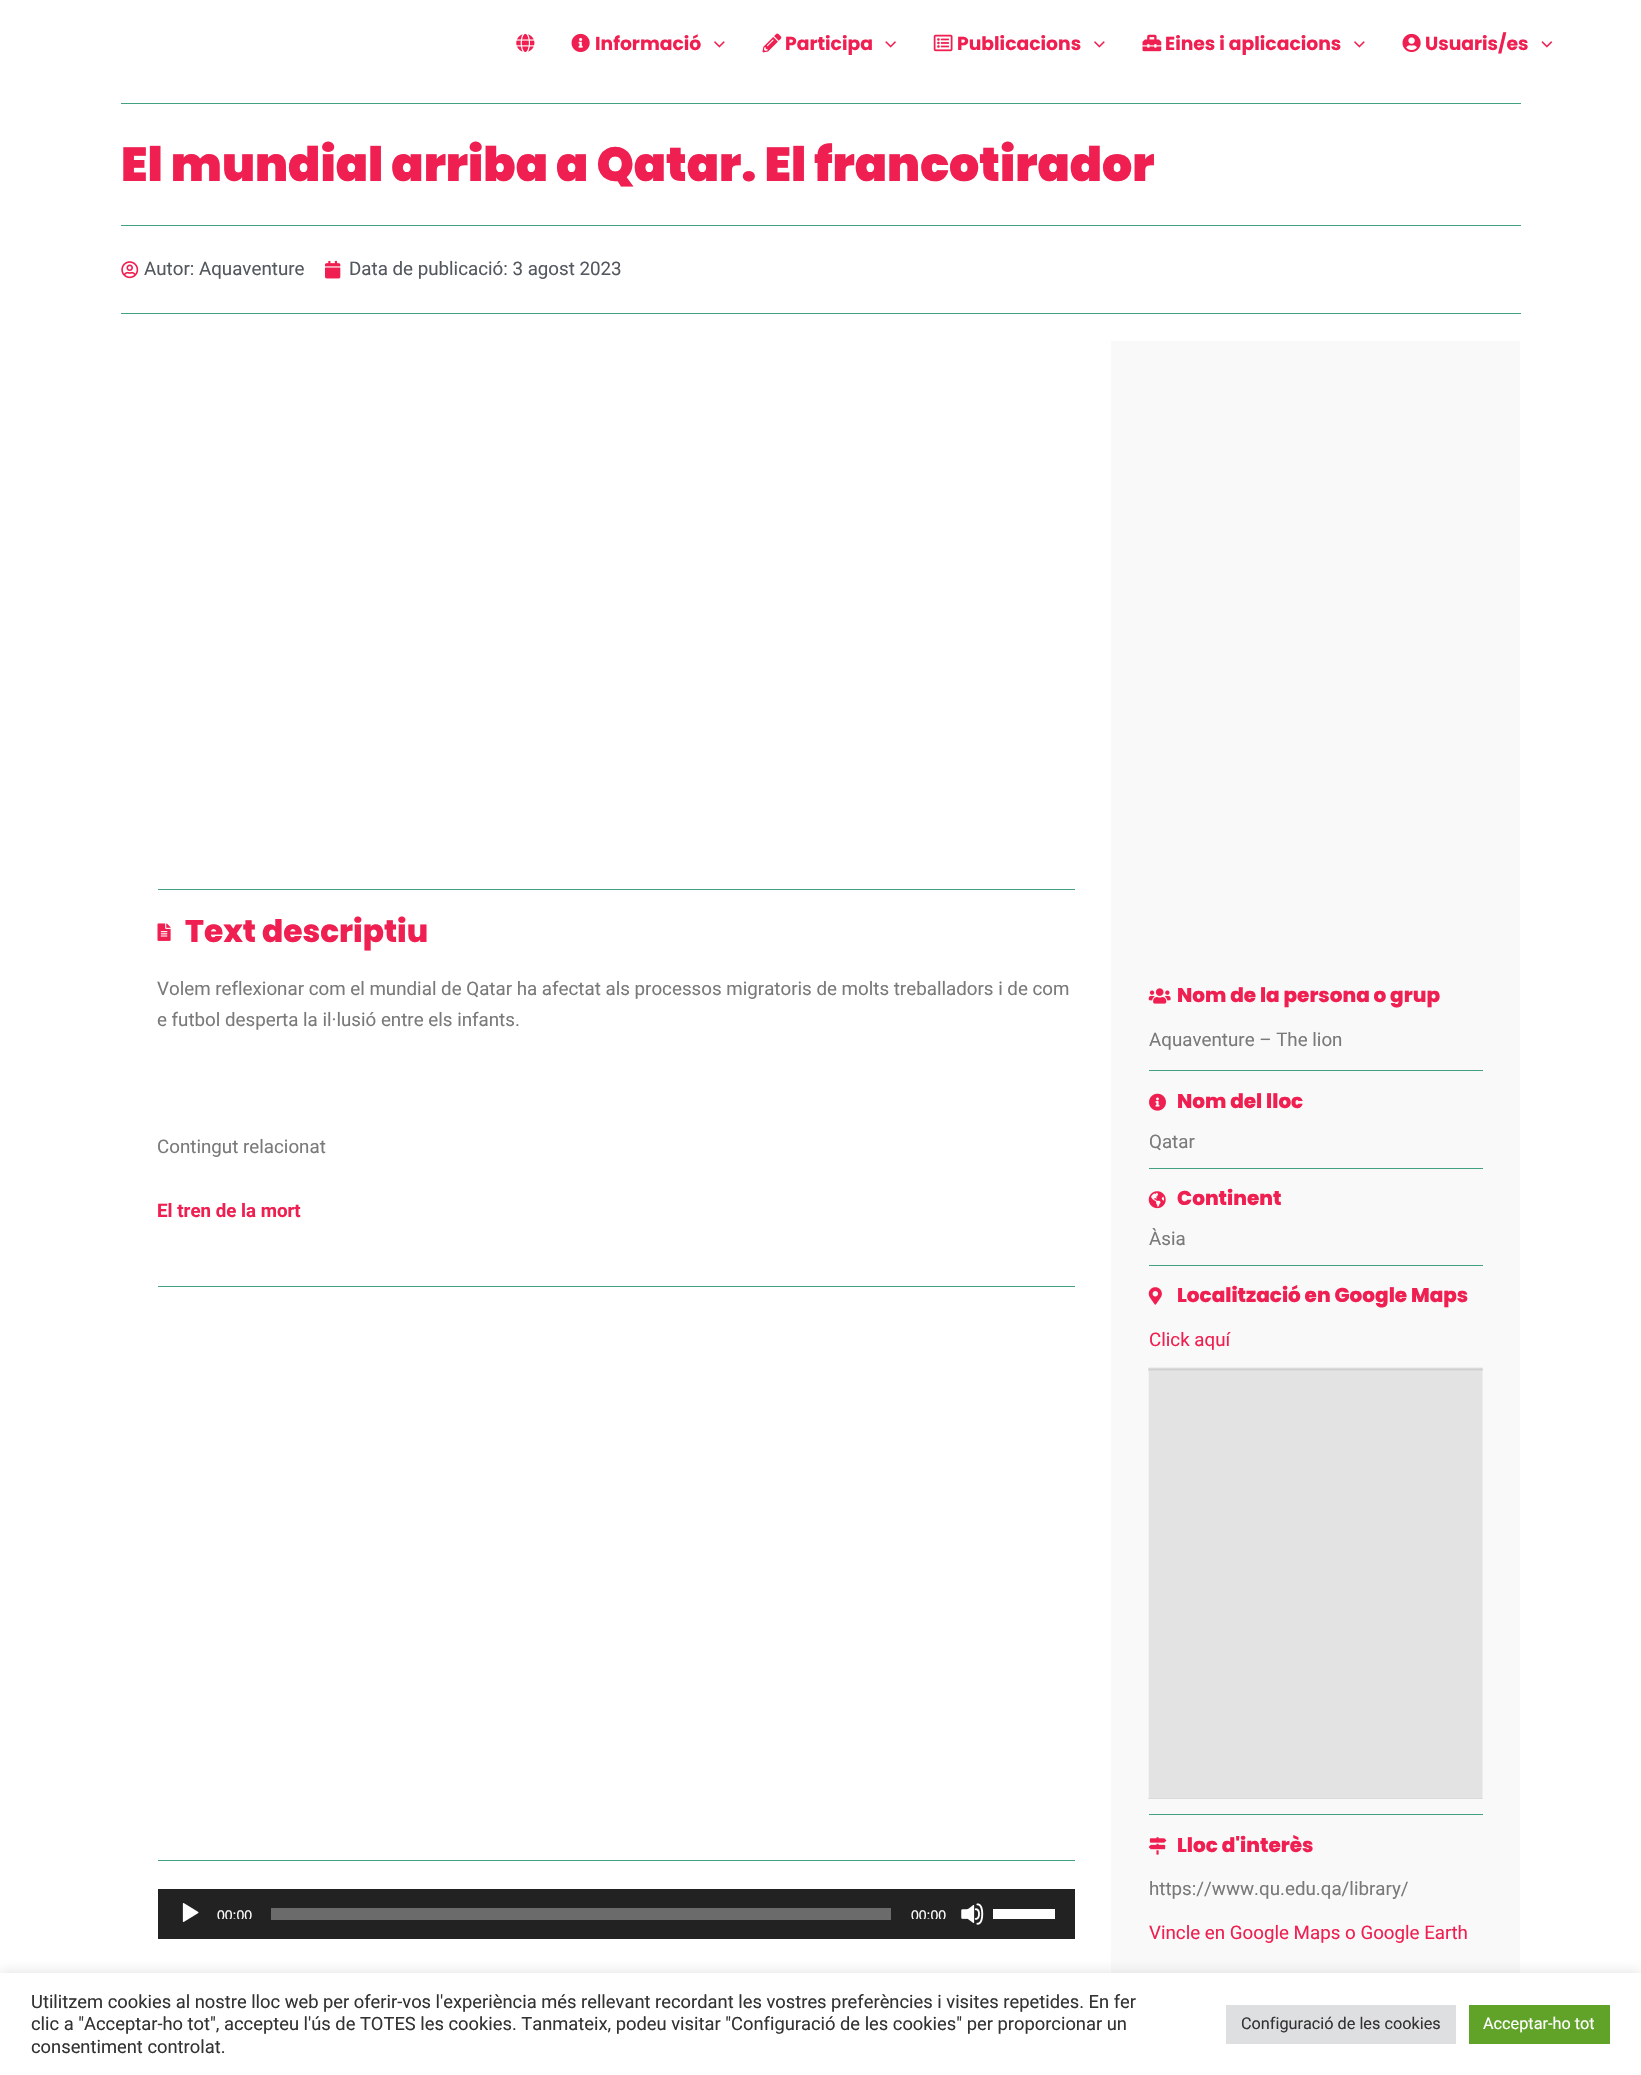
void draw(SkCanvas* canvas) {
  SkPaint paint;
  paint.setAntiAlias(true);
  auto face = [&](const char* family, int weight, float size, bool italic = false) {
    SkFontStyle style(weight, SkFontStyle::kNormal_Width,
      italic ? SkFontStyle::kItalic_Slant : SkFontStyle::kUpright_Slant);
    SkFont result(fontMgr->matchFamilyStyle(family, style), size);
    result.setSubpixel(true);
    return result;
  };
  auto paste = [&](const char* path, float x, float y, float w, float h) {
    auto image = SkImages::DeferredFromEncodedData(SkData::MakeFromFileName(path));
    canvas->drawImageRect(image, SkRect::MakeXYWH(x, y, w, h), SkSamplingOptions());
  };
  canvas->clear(0xffffffff);
  paste("img/1.png", 516, 33, 19, 19);
  paste("img/2.png", 571, 33, 19, 20);
  paste("img/3.png", 714, 41, 11, 7);
  paste("img/4.png", 762, 33, 20, 20);
  paste("img/5.png", 885, 41, 11, 7);
  paste("img/6.png", 933, 34, 20, 18);
  paste("img/3.png", 1094, 41, 11, 7);
  paste("img/7.png", 1142, 34, 20, 18);
  paste("img/3.png", 1354, 41, 11, 7);
  paste("img/8.png", 1402, 33, 19, 20);
  paste("img/9.png", 1541, 41, 12, 7);
  paint.setColor(0xff42a17e);
  canvas->drawRect(SkRect::MakeXYWH(121, 103, 1400, 1), paint);
  canvas->drawRect(SkRect::MakeXYWH(121, 225, 1400, 1), paint);
  paste("img/10.png", 121, 261, 18, 18);
  paste("img/11.png", 325, 260, 16, 19);
  canvas->drawRect(SkRect::MakeXYWH(121, 313, 1400, 1), paint);
  canvas->drawRect(SkRect::MakeXYWH(158, 889, 917, 1), paint);
  paste("img/12.png", 157, 923, 14, 18);
  {
    const struct { float x, y, w, h; SkColor color; } items[] = {
      {158, 1286, 917, 1, 0xff42a17e},
      {158, 1860, 917, 1, 0xff42a17e},
      {158, 1889, 917, 50, 0xff222222},
    };
    for (auto [x, y, w, h, color] : items) {
      paint.setColor(color);
      canvas->drawRect(SkRect::MakeXYWH(x, y, w, h), paint);
    }
  }
  paste("img/13.png", 182, 1903, 17, 19);
  paint.setColor(0xff6b6b6b);
  canvas->drawRect(SkRect::MakeXYWH(271, 1908, 620, 12), paint);
  paste("img/14.png", 961, 1903, 23, 22);
  paint.setColor(0xffffffff);
  canvas->drawRect(SkRect::MakeXYWH(993, 1909, 62, 10), paint);
  paint.setColor(0xfff9f9f9);
  canvas->drawRect(SkRect::MakeXYWH(1111, 341, 409, 1632), paint);
  paste("img/15.png", 1148, 988, 23, 16);
  paint.setColor(0xff42a17e);
  canvas->drawRect(SkRect::MakeXYWH(1149, 1070, 334, 1), paint);
  paste("img/16.png", 1149, 1093, 17, 18);
  canvas->drawRect(SkRect::MakeXYWH(1149, 1168, 334, 1), paint);
  paste("img/17.png", 1148, 1191, 18, 18);
  canvas->drawRect(SkRect::MakeXYWH(1149, 1265, 334, 1), paint);
  paste("img/18.png", 1148, 1287, 14, 18);
  paste("img/19.png", 1148, 1367, 335, 432);
  canvas->drawRect(SkRect::MakeXYWH(1149, 1814, 334, 1), paint);
  paste("img/20.png", 1148, 1837, 19, 18);
  paint.setColor(0x4dacabab);
  paint.setMaskFilter(SkMaskFilter::MakeBlur(kNormal_SkBlurStyle, 6));
  canvas->drawRect(SkRect::MakeXYWH(0, 1971, 1641, 103), paint);
  paint.setMaskFilter(nullptr);
  {
    const struct { float x, y, w, h; SkColor color; } items[] = {
      {0, 1973, 1641, 102, 0xffffffff},
      {1226, 2005, 230, 39, 0xffdedfe0},
      {1469, 2005, 141, 39, 0xff61a229},
    };
    for (auto [x, y, w, h, color] : items) {
      paint.setColor(color);
      canvas->drawRect(SkRect::MakeXYWH(x, y, w, h), paint);
    }
  }
  auto f0 = face("Poppins", 700, 18.75f);
  paint.setColor(0xffef2051);
  {
    const struct { const char* s; float x, y; } items[] = {
      {"Informació", 595, 50},
      {"Participa", 785, 50},
      {"Publicacions", 957, 50},
      {"Eines i aplicacions", 1165, 50},
      {"Usuaris/es", 1425, 50},
    };
    for (auto [s, x, y] : items) {
      canvas->drawString(s, x, y, f0, paint);
    }
  }
  auto f1 = face("Poppins", 900, 47.5f);
  canvas->drawString("El mundial arriba a Qatar. El francotirador", 121, 181, f1, paint);
  auto f2 = face("Roboto", 400, 18.75f);
  paint.setColor(0xff54595f);
  canvas->drawString("Autor: Aquaventure", 144, 275, f2, paint);
  canvas->drawString("Data de publicació: 3 agost 2023", 349, 275, f2, paint);
  auto f3 = face("Poppins", 800, 31.25f);
  paint.setColor(0xffef2051);
  canvas->drawString("Text descriptiu", 185, 942, f3, paint);
  paint.setColor(0xff7a7a7a);
  {
    const struct { const char* s; float x, y; } items[] = {
      {"Volem reflexionar com el mundial de Qatar ha afectat als processos migratoris de molts treballadors i de com", 157, 995},
      {"e futbol desperta la il·lusió entre els infants.", 157, 1026},
      {"Contingut relacionat", 157, 1153},
    };
    for (auto [s, x, y] : items) {
      canvas->drawString(s, x, y, f2, paint);
    }
  }
  auto f4 = face("Roboto", 700, 18.75f);
  paint.setColor(0xffef2051);
  canvas->drawString("El tren de la mort", 157, 1217, f4, paint);
  canvas->save();
  canvas->clipRect(SkRect::MakeXYWH(210, 1889, 49, 30));
  auto f5 = face("Liberation Sans", 400, 14);
  paint.setColor(0xffffffff);
  canvas->drawString("00:00", 217, 1920, f5, paint);
  canvas->restore();
  canvas->save();
  canvas->clipRect(SkRect::MakeXYWH(904, 1889, 49, 30));
  canvas->drawString("00:00", 911, 1920, f5, paint);
  canvas->restore();
  auto f6 = face("Poppins", 800, 20);
  paint.setColor(0xffef2051);
  canvas->drawString("Nom de la persona o grup", 1177, 1002, f6, paint);
  paint.setColor(0xff7a7a7a);
  canvas->drawString("Aquaventure – The lion", 1149, 1046, f2, paint);
  paint.setColor(0xffef2051);
  canvas->drawString("Nom del lloc", 1177, 1108, f6, paint);
  paint.setColor(0xff7a7a7a);
  canvas->drawString("Qatar", 1149, 1148, f2, paint);
  paint.setColor(0xffef2051);
  canvas->drawString("Continent", 1177, 1205, f6, paint);
  paint.setColor(0xff7a7a7a);
  canvas->drawString("Àsia", 1149, 1245, f2, paint);
  paint.setColor(0xffef2051);
  canvas->drawString("Localització en Google Maps", 1177, 1302, f6, paint);
  canvas->drawString("Click aquí", 1149, 1346, f2, paint);
  canvas->drawString("Lloc d'interès", 1177, 1852, f6, paint);
  paint.setColor(0xff7a7a7a);
  canvas->drawString("https://www.qu.edu.qa/library/", 1149, 1895, f2, paint);
  paint.setColor(0xffef2051);
  canvas->drawString("Vincle en Google Maps o Google Earth", 1149, 1939, f2, paint);
  auto f7 = face("Roboto", 400, 18.33f);
  paint.setColor(0xff333333);
  {
    const struct { const char* s; float x, y; } items[] = {
      {"Utilitzem cookies al nostre lloc web per oferir-vos l'experiència més rellevant recordant les vostres preferències i visites repetides. En fer", 31, 2008},
      {"clic a \"Acceptar-ho tot\", accepteu l'ús de TOTES les cookies. Tanmateix, podeu visitar \"Configuració de les cookies\" per proporcionar un", 31, 2030},
      {"consentiment controlat.", 31, 2053},
    };
    for (auto [s, x, y] : items) {
      canvas->drawString(s, x, y, f7, paint);
    }
  }
  auto f8 = face("Roboto", 400, 16.25f);
  canvas->drawString("Configuració de les cookies", 1241, 2029, f8, paint);
  paint.setColor(0xffffffff);
  canvas->drawString("Acceptar-ho tot", 1483, 2029, f8, paint);
}
